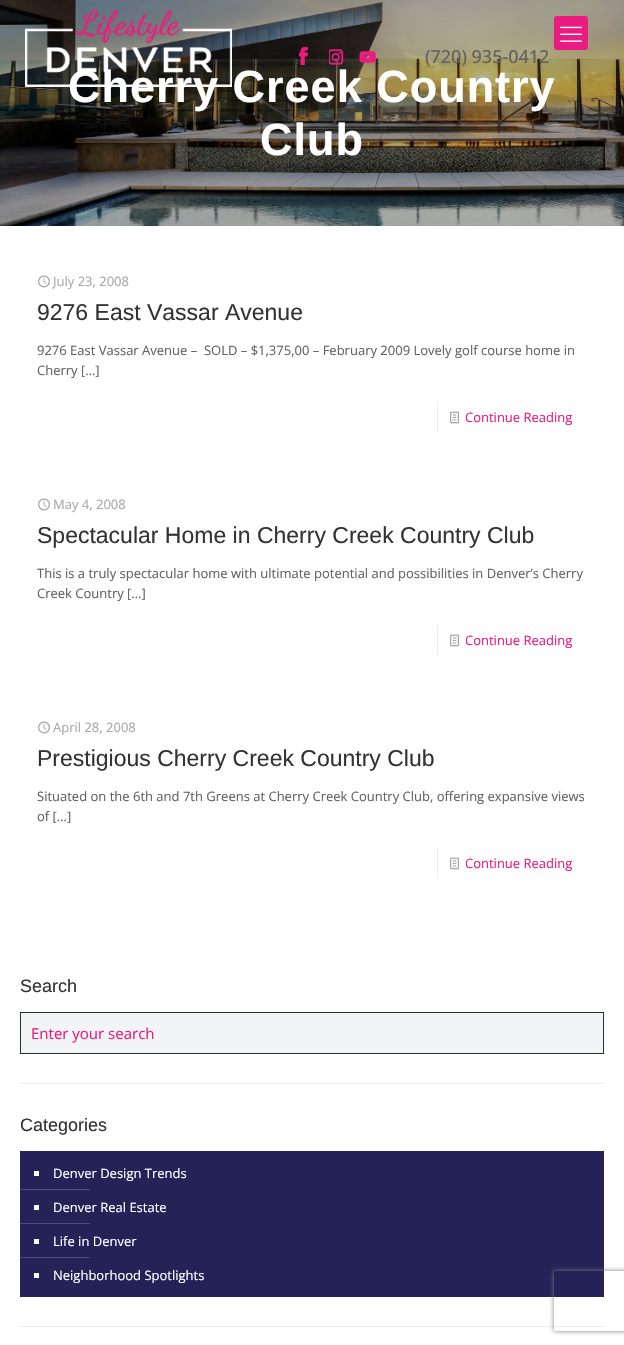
void draw(SkCanvas* canvas) {
  SkPaint paint;
  paint.setAntiAlias(true);
  auto face = [&](const char* family, int weight, float size, bool italic = false) {
    SkFontStyle style(weight, SkFontStyle::kNormal_Width,
      italic ? SkFontStyle::kItalic_Slant : SkFontStyle::kUpright_Slant);
    SkFont result(fontMgr->matchFamilyStyle(family, style), size);
    result.setSubpixel(true);
    return result;
  };
  auto writeSpaced = [&](const char* s, float x, float y, const SkFont& font, const SkPaint& ink, float letter, float word) {
    std::vector<SkGlyphID> glyphs(font.countText(s, strlen(s), SkTextEncoding::kUTF8));
    std::vector<float> xs(glyphs.size());
    font.textToGlyphs(s, strlen(s), SkTextEncoding::kUTF8, glyphs);
    font.getXPos(glyphs, xs, x);
    float extra = 0;
    for (size_t i = 0; i < glyphs.size(); i++) {
      xs[i] += extra;
      extra += letter + word * (glyphs[i] == font.unicharToGlyph(' '));
    }
    canvas->drawTextBlob(SkTextBlob::MakeFromPosHGlyphs(glyphs, xs, y, font), 0, 0, ink);
  };
  auto paste = [&](const char* path, float x, float y, float w, float h) {
    auto image = SkImages::DeferredFromEncodedData(SkData::MakeFromFileName(path));
    canvas->drawImageRect(image, SkRect::MakeXYWH(x, y, w, h), SkSamplingOptions());
  };
  auto shape = [&](const char* data, bool evenOdd = false) {
    SkPath result = *SkParsePath::FromSVGString(data);
    if (evenOdd) result.setFillType(SkPathFillType::kEvenOdd);
    return result;
  };
  canvas->clear(0xffffffff);
  paste("img/6.png", 0, 0, 624, 226);
  paint.setColor(0xffeb1c7f);
  canvas->drawRoundRect(SkRect::MakeXYWH(554, 16, 34, 34), 3, 3, paint);
  paste("img/2.png", 560, 26, 22, 16);
  paste("img/3.png", 299, 46, 9, 19);
  paste("img/4.png", 329, 49, 15, 16);
  paste("img/5.png", 359, 51, 17, 12);
  paste("img/7.png", 38, 275, 12, 13);
  paint.setColor(0xffebebeb);
  canvas->drawRect(SkRect::MakeXYWH(437, 402, 1, 30), paint);
  paste("img/8.png", 450, 411, 10, 13);
  paste("img/7.png", 38, 498, 12, 13);
  canvas->drawRect(SkRect::MakeXYWH(437, 625, 1, 30), paint);
  paste("img/8.png", 450, 634, 10, 13);
  paste("img/7.png", 38, 721, 12, 13);
  canvas->drawRect(SkRect::MakeXYWH(437, 848, 1, 30), paint);
  paste("img/8.png", 450, 857, 10, 13);
  paint.setColor(0xfff3f4f5);
  canvas->drawRect(SkRect::MakeXYWH(20.5f, 1012.5f, 583, 41), paint);
  paint.setStroke(true);
  paint.setStrokeWidth(1);
  paint.setColor(0xff2d2d2d);
  canvas->drawRect(SkRect::MakeXYWH(20.5f, 1012.5f, 583, 41), paint);
  paint.setStroke(false);
  {
    const struct { float x, y, w, h; SkColor color; } items[] = {
      {20, 1083, 584, 1, 0xffebebeb},
      {20, 1151, 584, 146, 0xff242257},
      {34, 1171, 5, 5, 0xffffffff},
      {20, 1189, 70, 1, 0xff504e79},
      {34, 1205, 5, 5, 0xffffffff},
      {20, 1223, 70, 1, 0xff504e79},
      {34, 1239, 5, 5, 0xffffffff},
      {20, 1257, 70, 1, 0xff504e79},
      {34, 1273, 5, 5, 0xffffffff},
      {20, 1326, 584, 1, 0xffebebeb},
    };
    for (auto [x, y, w, h, color] : items) {
      paint.setColor(color);
      canvas->drawRect(SkRect::MakeXYWH(x, y, w, h), paint);
    }
  }
  canvas->save();
  canvas->clipPath(shape("M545 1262H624V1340H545ZM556 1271H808C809 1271 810 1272 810 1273V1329C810 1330 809 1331 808 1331H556C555 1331 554 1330 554 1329V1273C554 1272 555 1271 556 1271Z", true), true);
  paint.setColor(0xff808080);
  paint.setMaskFilter(SkMaskFilter::MakeBlur(kNormal_SkBlurStyle, 2.5f));
  canvas->drawRoundRect(SkRect::MakeXYWH(554, 1271, 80, 60), 2, 2, paint);
  paint.setMaskFilter(nullptr);
  canvas->restore();
  auto f0 = face("Open Sans", 500, 18);
  paint.setColor(0xff626262);
  canvas->drawString("(720) 935-0412", 425, 63, f0, paint);
  auto f1 = face("Liberation Sans", 700, 45);
  paint.setColor(0xffffffff);
  writeSpaced("Cherry Creek Country", 68, 102, f1, paint, 1, 0);
  paste("img/1.png", 25, 10, 207, 77);
  writeSpaced("Club", 260, 155, f1, paint, 1, 0);
  auto f2 = face("Open Sans", 400, 13);
  paint.setColor(0xffa8a8a8);
  canvas->drawString("July 23, 2008", 53, 286, f2, paint);
  auto f3 = face("Liberation Sans", 400, 23);
  paint.setColor(0xff333333);
  canvas->drawString("9276 East Vassar Avenue", 37, 320, f3, paint);
  paint.setColor(0xff626262);
  canvas->drawString("9276 East Vassar Avenue –  SOLD – $1,375,00 – February 2009 Lovely golf course home in", 37, 355, f2, paint);
  canvas->drawString("Cherry […]", 37, 375, f2, paint);
  paint.setColor(0xffeb1c7f);
  canvas->drawString("Continue Reading", 465, 422, f2, paint);
  paint.setColor(0xffa8a8a8);
  canvas->drawString("May 4, 2008", 53, 509, f2, paint);
  paint.setColor(0xff333333);
  canvas->drawString("Spectacular Home in Cherry Creek Country Club", 37, 543, f3, paint);
  paint.setColor(0xff626262);
  canvas->drawString("This is a truly spectacular home with ultimate potential and possibilities in Denver’s Cherry", 37, 578, f2, paint);
  canvas->drawString("Creek Country […]", 37, 598, f2, paint);
  paint.setColor(0xffeb1c7f);
  canvas->drawString("Continue Reading", 465, 645, f2, paint);
  paint.setColor(0xffa8a8a8);
  canvas->drawString("April 28, 2008", 53, 732, f2, paint);
  paint.setColor(0xff333333);
  canvas->drawString("Prestigious Cherry Creek Country Club", 37, 766, f3, paint);
  paint.setColor(0xff626262);
  canvas->drawString("Situated on the 6th and 7th Greens at Cherry Creek Country Club, offering expansive views", 37, 801, f2, paint);
  canvas->drawString("of […]", 37, 821, f2, paint);
  paint.setColor(0xffeb1c7f);
  canvas->drawString("Continue Reading", 465, 868, f2, paint);
  auto f4 = face("Liberation Sans", 400, 18);
  paint.setColor(0xff333333);
  canvas->drawString("Search", 20, 992, f4, paint);
  auto f5 = face("Open Sans", 400, 15);
  paint.setColor(0xffeb1c7f);
  canvas->drawString("Enter your search", 31, 1039, f5, paint);
  paint.setColor(0xff333333);
  canvas->drawString("Categories", 20, 1131, f4, paint);
  paint.setColor(0xffffffff);
  {
    const struct { const char* s; float x, y; } items[] = {
      {"Denver Design Trends", 53, 1178},
      {"Denver Real Estate", 53, 1212},
      {"Life in Denver", 53, 1246},
      {"Neighborhood Spotlights", 53, 1280},
    };
    for (auto [s, x, y] : items) {
      canvas->drawString(s, x, y, f2, paint);
    }
  }
}
